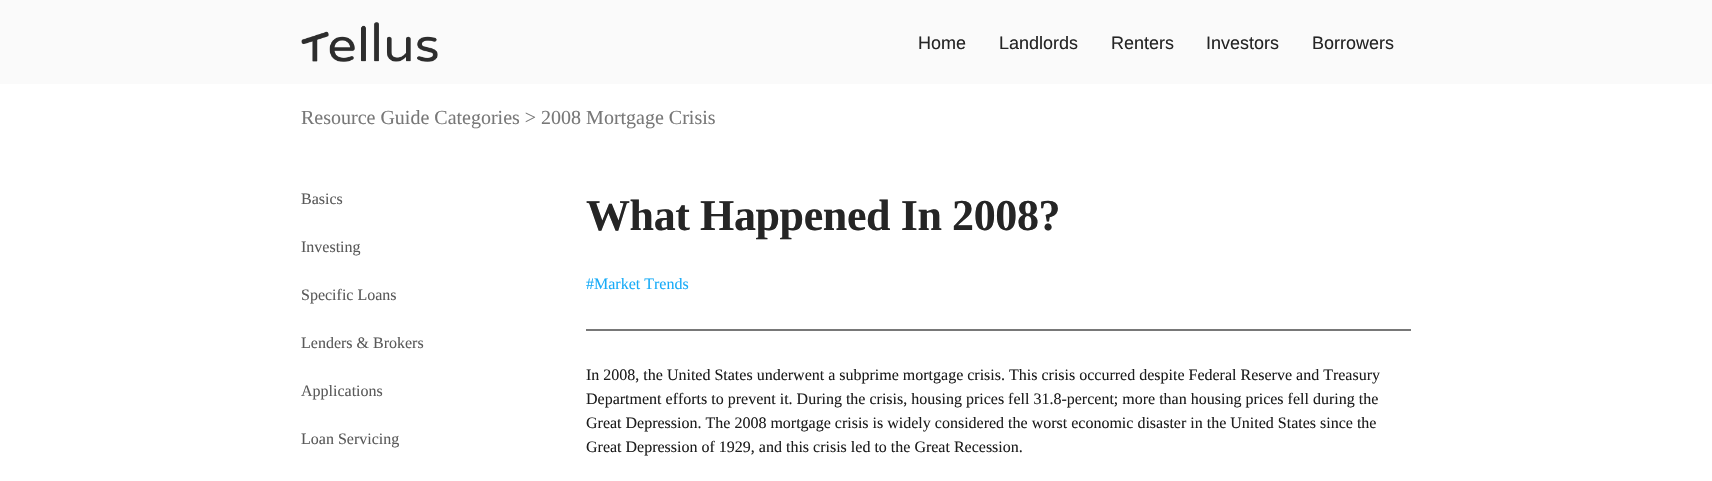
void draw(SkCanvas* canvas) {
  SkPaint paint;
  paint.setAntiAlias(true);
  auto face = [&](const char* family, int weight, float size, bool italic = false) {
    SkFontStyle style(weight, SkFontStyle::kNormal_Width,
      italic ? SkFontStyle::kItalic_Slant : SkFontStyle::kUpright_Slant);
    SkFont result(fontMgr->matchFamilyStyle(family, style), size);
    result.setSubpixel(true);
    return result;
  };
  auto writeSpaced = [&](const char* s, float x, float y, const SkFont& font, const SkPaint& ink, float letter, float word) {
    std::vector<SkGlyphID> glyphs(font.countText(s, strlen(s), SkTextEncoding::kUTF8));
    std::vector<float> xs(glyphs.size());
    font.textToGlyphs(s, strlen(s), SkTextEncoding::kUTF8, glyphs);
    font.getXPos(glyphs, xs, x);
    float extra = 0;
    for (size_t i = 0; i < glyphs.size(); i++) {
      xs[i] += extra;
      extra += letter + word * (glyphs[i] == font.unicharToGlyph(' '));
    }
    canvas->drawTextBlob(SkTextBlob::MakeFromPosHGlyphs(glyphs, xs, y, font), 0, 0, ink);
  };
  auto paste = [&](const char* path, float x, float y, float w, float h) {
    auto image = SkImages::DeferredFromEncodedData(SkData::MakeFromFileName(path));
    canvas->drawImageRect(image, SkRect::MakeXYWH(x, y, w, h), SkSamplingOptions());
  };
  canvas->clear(0xffffffff);
  paint.setColor(0xfffafafa);
  canvas->drawRect(SkRect::MakeXYWH(0, 0, 1712, 84), paint);
  paste("img/1.png", 301, 22, 137, 40);
  paint.setColor(0xff787878);
  canvas->drawRect(SkRect::MakeXYWH(586, 329, 825, 2), paint);
  auto f0 = face("Liberation Sans", 400, 18);
  paint.setColor(0xff252525);
  {
    const struct { const char* s; float x, y; } items[] = {
      {"Home", 918, 49},
      {"Landlords", 999, 49},
      {"Renters", 1111, 49},
      {"Investors", 1206, 49},
      {"Borrowers", 1312, 49},
    };
    for (auto [s, x, y] : items) {
      canvas->drawString(s, x, y, f0, paint);
    }
  }
  auto f1 = face("Liberation Serif", 400, 20);
  paint.setColor(0xff787878);
  canvas->drawString("Resource Guide Categories > 2008 Mortgage Crisis", 301, 124, f1, paint);
  auto f2 = face("Liberation Serif", 400, 16);
  paint.setColor(0xff5a5a5a);
  {
    const struct { const char* s; float x, y; } items[] = {
      {"Basics", 301, 204},
      {"Investing", 301, 252},
      {"Specific Loans", 301, 300},
      {"Lenders & Brokers", 301, 348},
      {"Applications", 301, 396},
      {"Loan Servicing", 301, 444},
    };
    for (auto [s, x, y] : items) {
      canvas->drawString(s, x, y, f2, paint);
    }
  }
  auto f3 = face("Liberation Serif", 700, 44);
  paint.setColor(0xff252525);
  writeSpaced("What Happened In 2008?", 586, 230, f3, paint, -0.4f, 0);
  paint.setColor(0xff18acf8);
  canvas->drawString("#Market Trends", 586, 289, f2, paint);
  paint.setColor(0xff1e1e1e);
  {
    const struct { const char* s; float x, y; } items[] = {
      {"In 2008, the United States underwent a subprime mortgage crisis. This crisis occurred despite Federal Reserve and Treasury", 586, 380},
      {"Department efforts to prevent it. During the crisis, housing prices fell 31.8-percent; more than housing prices fell during the", 586, 404},
      {"Great Depression. The 2008 mortgage crisis is widely considered the worst economic disaster in the United States since the", 586, 428},
      {"Great Depression of 1929, and this crisis led to the Great Recession.", 586, 452},
    };
    for (auto [s, x, y] : items) {
      canvas->drawString(s, x, y, f2, paint);
    }
  }
}
